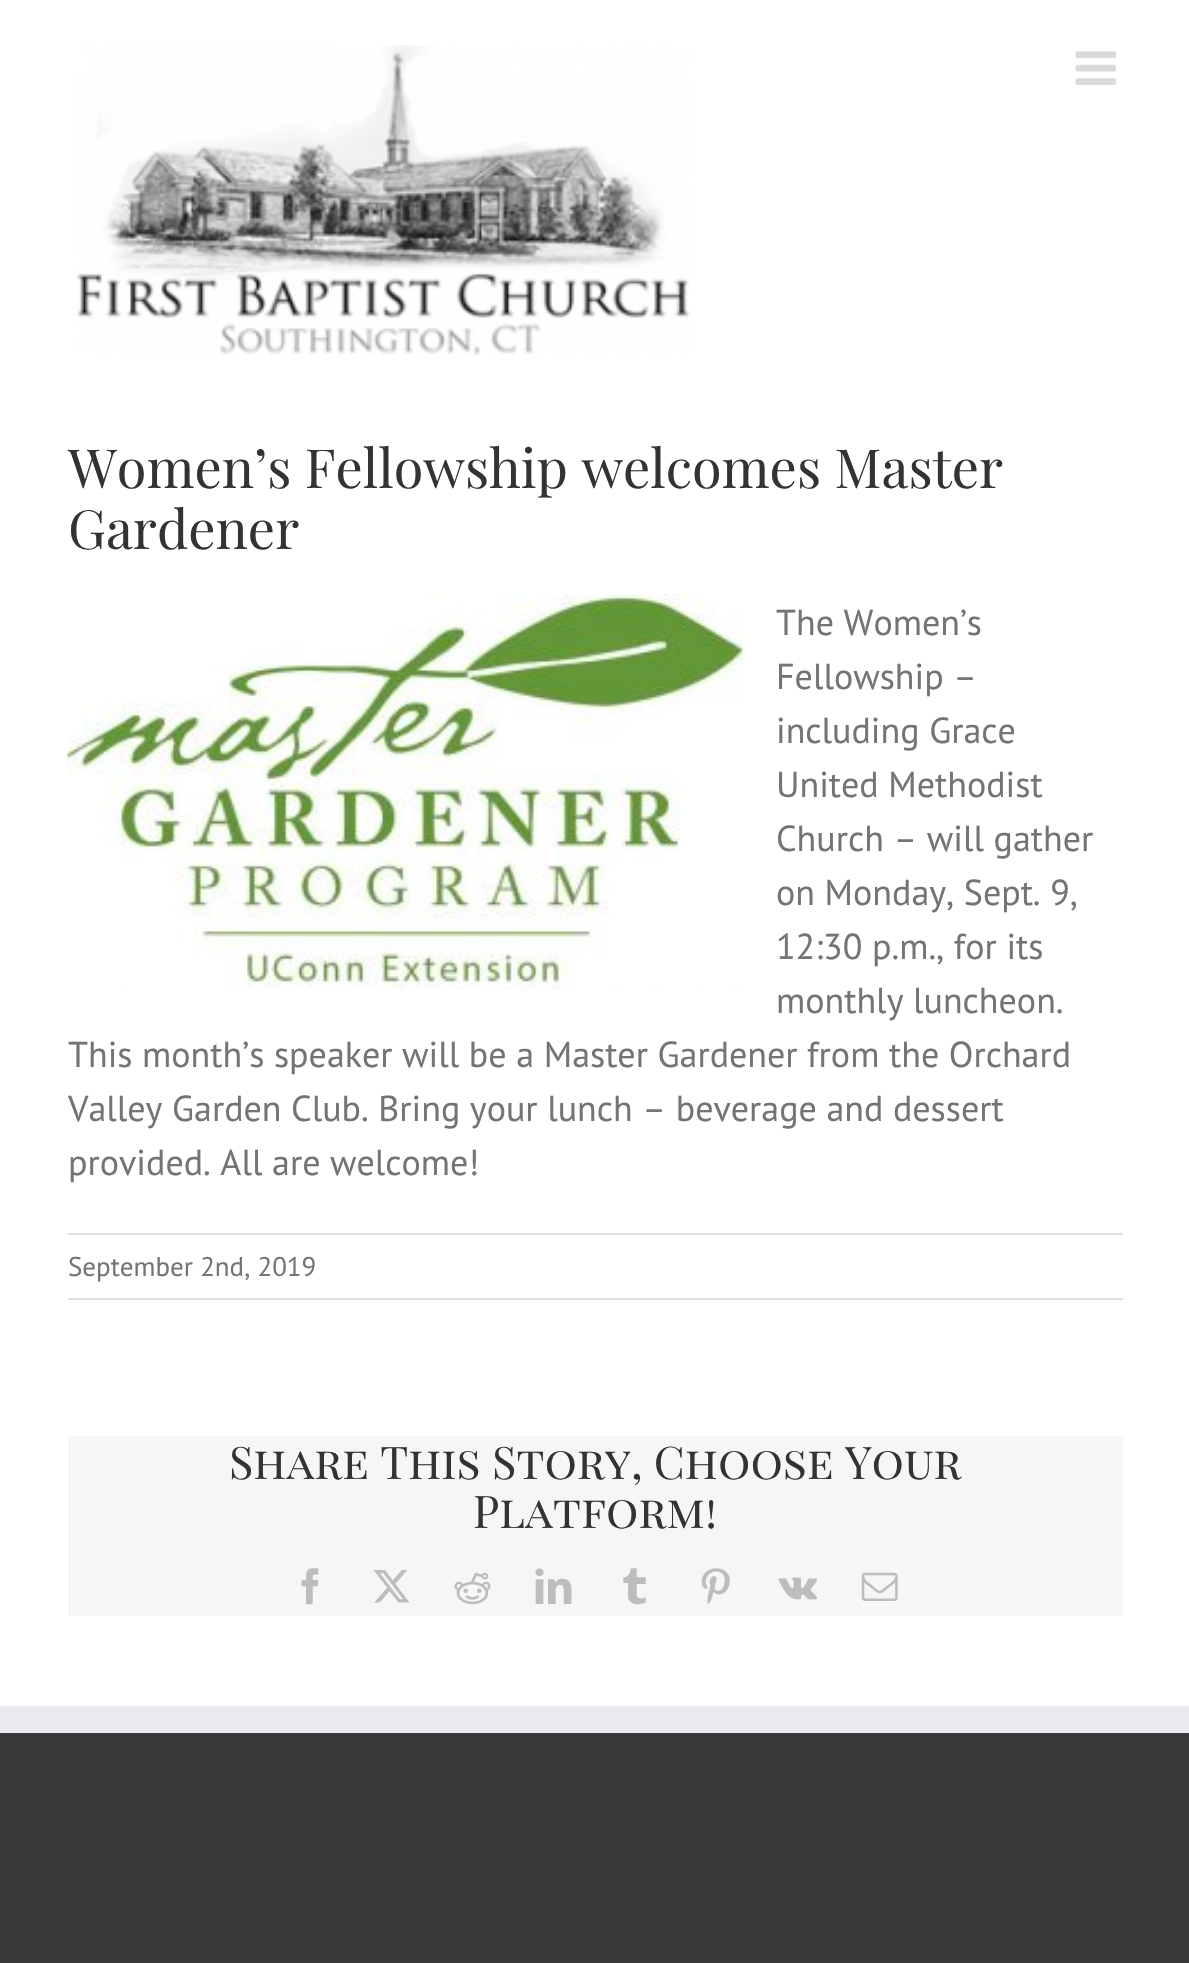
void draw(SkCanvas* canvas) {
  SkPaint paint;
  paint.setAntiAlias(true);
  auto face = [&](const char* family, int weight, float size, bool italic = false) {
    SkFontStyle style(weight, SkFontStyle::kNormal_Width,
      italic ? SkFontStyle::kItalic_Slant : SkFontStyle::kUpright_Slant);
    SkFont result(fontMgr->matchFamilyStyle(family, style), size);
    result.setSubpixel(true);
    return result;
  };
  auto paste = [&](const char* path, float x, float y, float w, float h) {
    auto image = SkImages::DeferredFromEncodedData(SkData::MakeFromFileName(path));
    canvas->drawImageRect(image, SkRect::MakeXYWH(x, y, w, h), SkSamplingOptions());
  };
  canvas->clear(0xffffffff);
  paste("img/1.png", 76, 45, 615, 311);
  paste("img/2.png", 1075, 51, 41, 34);
  paste("img/3.png", 67, 594, 676, 397);
  {
    const struct { float x, y, w, h; SkColor color; } items[] = {
      {68, 1233, 1055, 2, 0xffe0dede},
      {68, 1298, 1055, 2, 0xffe0dede},
      {68, 1436, 1055, 180, 0xfff6f6f6},
    };
    for (auto [x, y, w, h, color] : items) {
      paint.setColor(color);
      canvas->drawRect(SkRect::MakeXYWH(x, y, w, h), paint);
    }
  }
  paste("img/4.png", 301, 1568, 18, 37);
  paste("img/5.png", 373, 1570, 37, 33);
  paste("img/6.png", 454, 1572, 37, 33);
  paste("img/7.png", 535, 1568, 37, 36);
  paste("img/8.png", 623, 1568, 23, 37);
  paste("img/9.png", 701, 1568, 29, 36);
  paste("img/10.png", 778, 1577, 39, 23);
  paste("img/11.png", 861, 1572, 37, 29);
  paint.setColor(0xff363839);
  canvas->drawRect(SkRect::MakeXYWH(0, 1733, 1189, 230), paint);
  paint.setColor(0xffe9eaee);
  canvas->drawRect(SkRect::MakeXYWH(0, 1706, 1189, 27), paint);
  auto f0 = face("Playfair Display", 400, 54);
  paint.setColor(0xff333333);
  canvas->drawString("Women’s Fellowship welcomes Master", 68, 488, f0, paint);
  canvas->drawString("Gardener", 68, 549, f0, paint);
  auto f1 = face("PT Sans", 400, 36);
  paint.setColor(0xff747474);
  {
    const struct { const char* s; float x, y; } items[] = {
      {"The Women’s", 776, 635},
      {"Fellowship –", 776, 689},
      {"including Grace", 776, 743},
      {"United Methodist", 776, 797},
      {"Church – will gather", 776, 851},
      {"on Monday, Sept. 9,", 776, 905},
      {"12:30 p.m., for its", 776, 959},
      {"monthly luncheon.", 776, 1013},
      {"This month’s speaker will be a Master Gardener from the Orchard", 68, 1067},
      {"Valley Garden Club. Bring your lunch – beverage and dessert", 68, 1121},
      {"provided. All are welcome!", 68, 1175},
    };
    for (auto [s, x, y] : items) {
      canvas->drawString(s, x, y, f1, paint);
    }
  }
  auto f2 = face("PT Sans", 400, 27);
  canvas->drawString("September 2nd, 2019", 68, 1276, f2, paint);
  auto f3 = face("Playfair Display SC", 400, 45);
  paint.setColor(0xff333333);
  canvas->drawString("Share This Story, Choose Your", 229, 1479, f3, paint);
  canvas->drawString("Platform!", 473, 1528, f3, paint);
}
